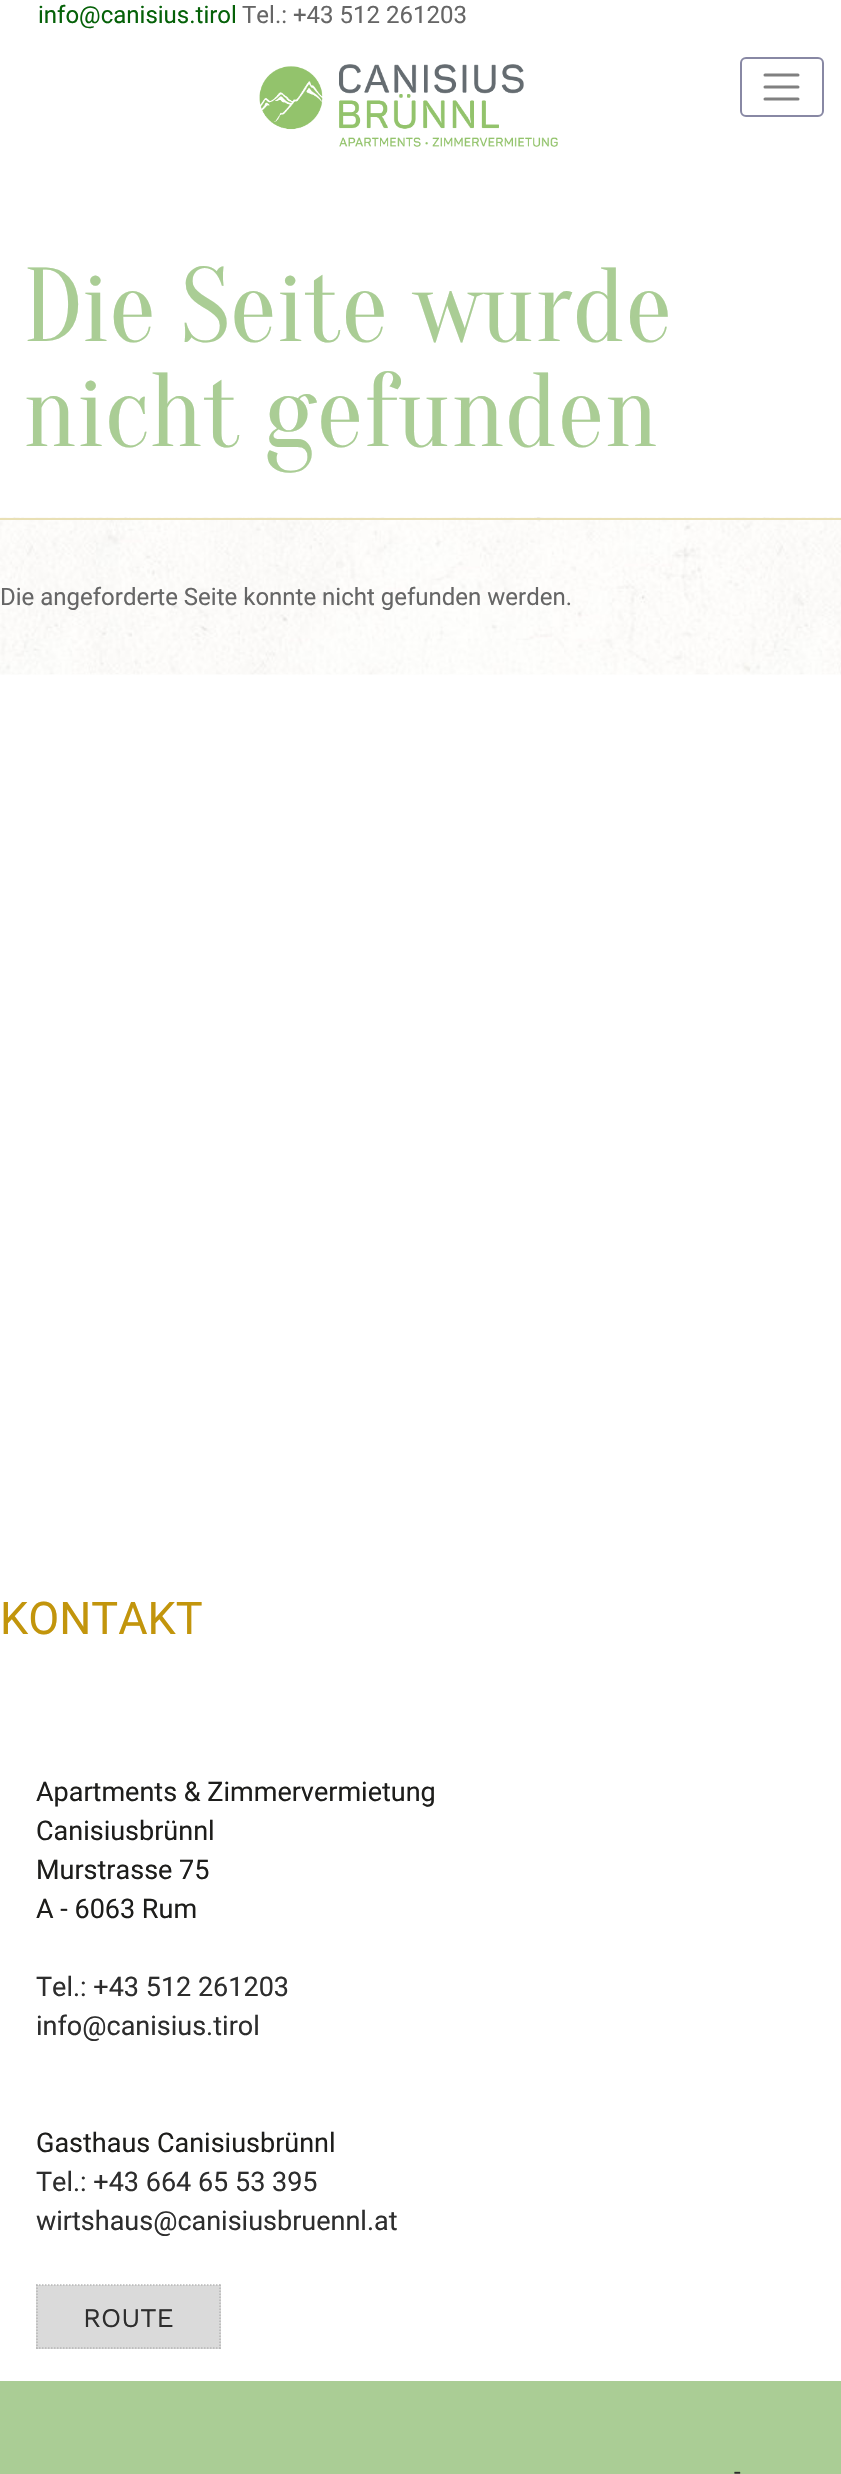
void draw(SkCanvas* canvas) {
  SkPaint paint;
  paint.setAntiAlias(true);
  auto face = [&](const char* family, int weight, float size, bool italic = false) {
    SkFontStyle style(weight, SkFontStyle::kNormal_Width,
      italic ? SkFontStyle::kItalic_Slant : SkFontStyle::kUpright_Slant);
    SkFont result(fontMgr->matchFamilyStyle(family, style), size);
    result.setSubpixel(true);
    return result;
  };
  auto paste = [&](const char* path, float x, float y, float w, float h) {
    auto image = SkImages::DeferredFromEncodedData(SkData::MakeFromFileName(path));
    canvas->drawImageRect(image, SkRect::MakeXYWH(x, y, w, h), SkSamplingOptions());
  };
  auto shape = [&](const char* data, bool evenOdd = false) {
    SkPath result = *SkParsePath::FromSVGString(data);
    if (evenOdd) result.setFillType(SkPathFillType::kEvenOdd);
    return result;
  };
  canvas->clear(0xffffffff);
  paste("img/1.png", 259, 64, 299, 83);
  paint.setStroke(true);
  paint.setStrokeWidth(2);
  paint.setColor(0xff8888a4);
  canvas->drawRoundRect(SkRect::MakeXYWH(741, 58, 82, 58), 5, 5, paint);
  paint.setStrokeWidth(3);
  paint.setStrokeCap(SkPaint::kRound_Cap);
  paint.setColor(0xff808080);
  canvas->drawPath(shape("M765 75H798M765 87H798M765 99H798"), paint);
  paste("img/2.png", 0, 517, 841, 158);
  paint.setStroke(false);
  {
    const struct { float x, y, w, h; SkColor color; } items[] = {
      {0, 518, 841, 2, 0xffe9e0b5},
      {0, 2381, 841, 93, 0xffaacd95},
      {36, 2285, 185, 64, 0xffdadada},
    };
    for (auto [x, y, w, h, color] : items) {
      paint.setColor(color);
      canvas->drawRect(SkRect::MakeXYWH(x, y, w, h), paint);
    }
  }
  paint.setStroke(true);
  paint.setStrokeWidth(1.5f);
  paint.setStrokeCap(SkPaint::kButt_Cap);
  paint.setColor(0xffb7b7b7);
  paint.setPathEffect(SkDashPathEffect::Make({{1.5f, 1.5f}}, 0));
  canvas->drawPath(shape("M36 2285H220.5"), paint);
  paint.setPathEffect(nullptr);
  paint.setPathEffect(SkDashPathEffect::Make({{1.5f, 1.5f}}, 0));
  canvas->drawPath(shape("M220 2284.5V2349"), paint);
  paint.setPathEffect(nullptr);
  paint.setPathEffect(SkDashPathEffect::Make({{1.5f, 1.5f}}, 0));
  canvas->drawPath(shape("M36 2348H220.5"), paint);
  paint.setPathEffect(nullptr);
  paint.setPathEffect(SkDashPathEffect::Make({{1.5f, 1.5f}}, 0));
  canvas->drawPath(shape("M37 2284.5V2349"), paint);
  paint.setPathEffect(nullptr);
  auto f0 = face("Roboto", 400, 24);
  paint.setStroke(false);
  paint.setColor(0xff056108);
  canvas->drawString("info@canisius.tirol", 38, 23, f0, paint);
  paint.setColor(0xff666666);
  canvas->drawString("Tel.: +43 512 261203", 242, 23, f0, paint);
  auto f1 = face("Oranienbaum", 400, 105);
  paint.setColor(0xffaacd95);
  canvas->drawString("Die Seite wurde", 23, 341, f1, paint);
  canvas->drawString("nicht gefunden", 23, 446, f1, paint);
  paint.setColor(0xff666666);
  canvas->drawString("Die angeforderte Seite konnte nicht gefunden werden.", 0, 605, f0, paint);
  auto f2 = face("Roboto", 400, 45);
  paint.setColor(0xffc2950c);
  canvas->drawString("KONTAKT", 0, 1634, f2, paint);
  auto f3 = face("Roboto", 400, 27);
  paint.setColor(0xff1d1d1b);
  {
    const struct { const char* s; float x, y; } items[] = {
      {"Apartments & Zimmervermietung", 36, 1801},
      {"Canisiusbrünnl", 36, 1840},
      {"Murstrasse 75", 36, 1879},
      {"A - 6063 Rum", 36, 1918},
    };
    for (auto [s, x, y] : items) {
      canvas->drawString(s, x, y, f3, paint);
    }
  }
  paint.setColor(0xff2d2d2d);
  canvas->drawString("Tel.: +43 512 261203", 36, 1996, f3, paint);
  canvas->drawString("info@canisius.tirol", 36, 2035, f3, paint);
  paint.setColor(0xff1d1d1b);
  canvas->drawString("Gasthaus Canisiusbrünnl", 36, 2152, f3, paint);
  paint.setColor(0xff2d2d2d);
  canvas->drawString("Tel.: +43 664 65 53 395", 36, 2191, f3, paint);
  canvas->drawString("wirtshaus@canisiusbruennl.at", 36, 2230, f3, paint);
  auto f4 = face("Work Sans", 400, 27);
  canvas->drawString("ROUTE", 83, 2327, f4, paint);
  canvas->drawString("-", 734, 2480, f0, paint);
}
